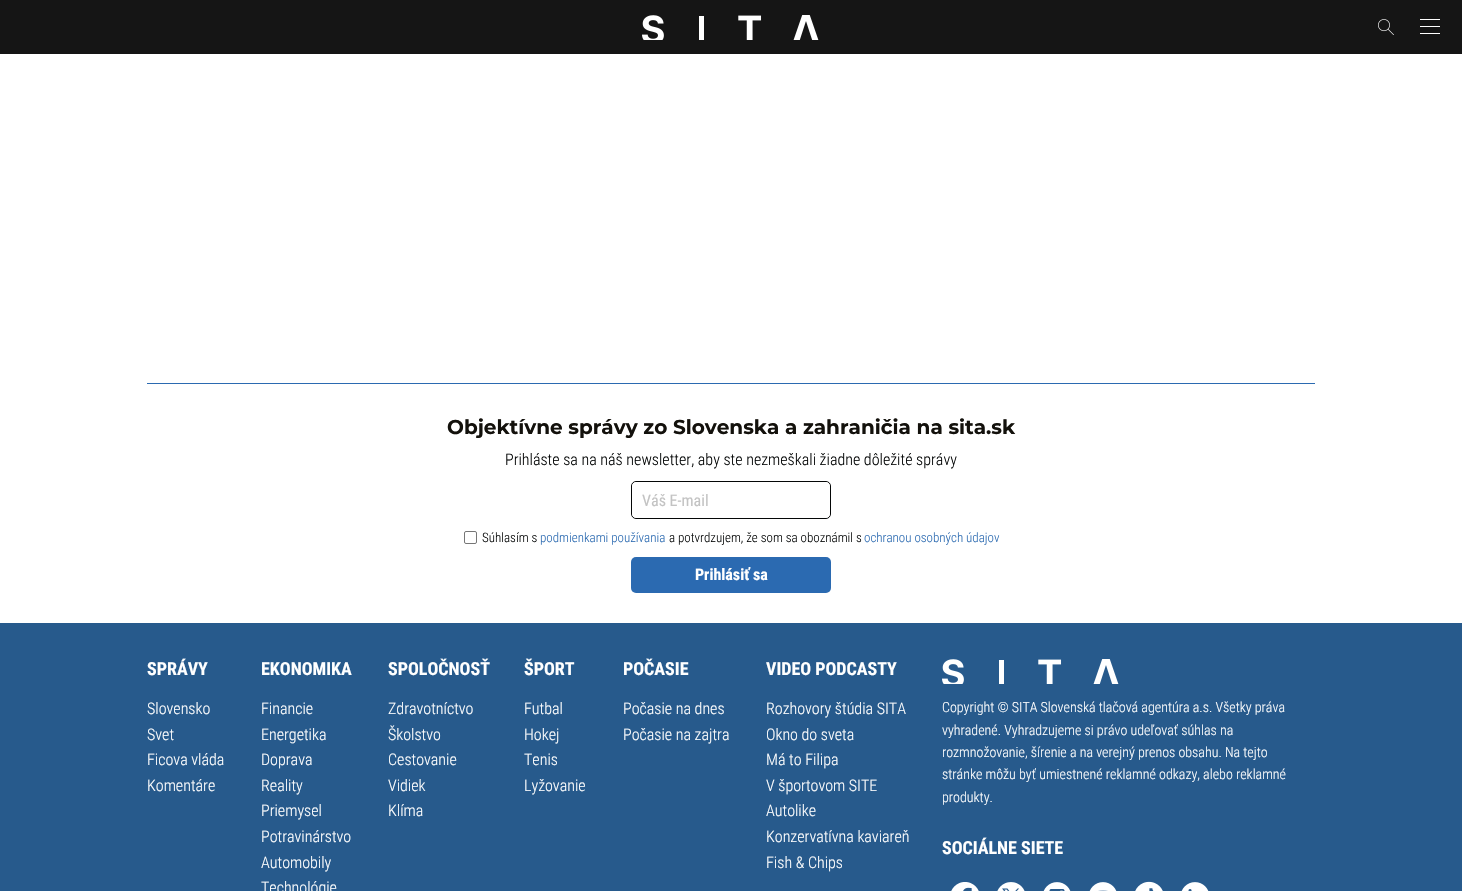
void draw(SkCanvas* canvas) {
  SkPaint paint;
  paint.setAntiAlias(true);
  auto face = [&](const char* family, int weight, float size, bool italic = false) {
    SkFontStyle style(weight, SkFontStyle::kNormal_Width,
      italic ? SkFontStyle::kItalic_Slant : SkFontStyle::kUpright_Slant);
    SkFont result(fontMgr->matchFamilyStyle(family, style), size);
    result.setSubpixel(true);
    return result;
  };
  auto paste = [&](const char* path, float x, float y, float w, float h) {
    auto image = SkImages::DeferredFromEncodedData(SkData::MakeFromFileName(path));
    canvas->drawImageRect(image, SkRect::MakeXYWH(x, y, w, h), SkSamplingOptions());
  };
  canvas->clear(0xffffffff);
  paint.setColor(0xff151515);
  canvas->drawRect(SkRect::MakeXYWH(0, 0, 1462, 54), paint);
  paste("img/1.png", 642, 15, 177, 25);
  paste("img/2.png", 1378, 19, 16, 16);
  {
    const struct { float x, y, w, h; SkColor color; } items[] = {
      {1420, 19, 20, 1, 0xffffffff},
      {1420, 26, 20, 1, 0xffffffff},
      {1420, 33, 20, 1, 0xffffffff},
      {147, 383, 1168, 1, 0xff2b6ab1},
    };
    for (auto [x, y, w, h, color] : items) {
      paint.setColor(color);
      canvas->drawRect(SkRect::MakeXYWH(x, y, w, h), paint);
    }
  }
  paint.setStroke(true);
  paint.setStrokeWidth(1);
  paint.setColor(0xff050707);
  canvas->drawRoundRect(SkRect::MakeXYWH(631.5f, 481.5f, 199, 37), 4.5f, 4.5f, paint);
  paint.setStroke(false);
  paint.setColor(0xffffffff);
  canvas->drawRoundRect(SkRect::MakeXYWH(632, 482, 198, 36), 5, 5, paint);
  paint.setStroke(true);
  paint.setColor(0xff767676);
  canvas->drawRoundRect(SkRect::MakeXYWH(464.5f, 531.5f, 12, 12), 1.5f, 1.5f, paint);
  paint.setStroke(false);
  paint.setColor(0xff2b6ab1);
  canvas->drawRoundRect(SkRect::MakeXYWH(631, 557, 200, 36), 5, 5, paint);
  paint.setColor(0xff275a8c);
  canvas->drawRect(SkRect::MakeXYWH(0, 623, 1462, 268), paint);
  paste("img/3.png", 942, 659, 177, 25);
  paste("img/4.png", 951, 882, 28, 9);
  paste("img/5.png", 997, 882, 28, 9);
  paste("img/6.png", 1043, 882, 28, 9);
  paste("img/7.png", 1089, 882, 28, 9);
  paste("img/8.png", 1135, 881, 28, 10);
  paste("img/9.png", 1181, 882, 28, 9);
  auto f0 = face("Montserrat", 700, 20);
  paint.setColor(0xff13110c);
  canvas->drawString("Objektívne správy zo Slovenska a zahraničia na sita.sk", 447, 434, f0, paint);
  auto f1 = face("Roboto Condensed", 300, 16);
  paint.setColor(0xff050707);
  canvas->drawString("Prihláste sa na náš newsletter, aby ste nezmeškali žiadne dôležité správy", 505, 465, f1, paint);
  auto f2 = face("Roboto Condensed", 400, 16);
  paint.setColor(0xffc3c3c3);
  canvas->drawString("Váš E-mail", 642, 506, f2, paint);
  auto f3 = face("Roboto Condensed", 300, 13);
  paint.setColor(0xff050707);
  canvas->drawString("Súhlasím s", 482, 542, f3, paint);
  paint.setColor(0xff2b6ab1);
  canvas->drawString("podmienkami používania", 540, 542, f3, paint);
  paint.setColor(0xff050707);
  canvas->drawString("a potvrdzujem, že som sa oboznámil s", 669, 542, f3, paint);
  paint.setColor(0xff2b6ab1);
  canvas->drawString("ochranou osobných údajov", 864, 542, f3, paint);
  auto f4 = face("Roboto Condensed", 700, 16);
  paint.setColor(0xffffffff);
  canvas->drawString("Prihlásiť sa", 695, 580, f4, paint);
  auto f5 = face("Roboto Condensed", 700, 18);
  canvas->drawString("SPRÁVY", 147, 675, f5, paint);
  {
    const struct { const char* s; float x, y; } items[] = {
      {"Slovensko", 147, 714},
      {"Svet", 147, 740},
      {"Ficova vláda", 147, 765},
      {"Komentáre", 147, 791},
    };
    for (auto [s, x, y] : items) {
      canvas->drawString(s, x, y, f1, paint);
    }
  }
  canvas->drawString("EKONOMIKA", 261, 675, f5, paint);
  {
    const struct { const char* s; float x, y; } items[] = {
      {"Financie", 261, 714},
      {"Energetika", 261, 740},
      {"Doprava", 261, 765},
      {"Reality", 261, 791},
      {"Priemysel", 261, 816},
      {"Potravinárstvo", 261, 842},
      {"Automobily", 261, 868},
      {"Technológie", 261, 893},
    };
    for (auto [s, x, y] : items) {
      canvas->drawString(s, x, y, f1, paint);
    }
  }
  canvas->drawString("SPOLOČNOSŤ", 388, 675, f5, paint);
  {
    const struct { const char* s; float x, y; } items[] = {
      {"Zdravotníctvo", 388, 714},
      {"Školstvo", 388, 740},
      {"Cestovanie", 388, 765},
      {"Vidiek", 388, 791},
      {"Klíma", 388, 816},
    };
    for (auto [s, x, y] : items) {
      canvas->drawString(s, x, y, f1, paint);
    }
  }
  canvas->drawString("ŠPORT", 524, 675, f5, paint);
  {
    const struct { const char* s; float x, y; } items[] = {
      {"Futbal", 524, 714},
      {"Hokej", 524, 740},
      {"Tenis", 524, 765},
      {"Lyžovanie", 524, 791},
    };
    for (auto [s, x, y] : items) {
      canvas->drawString(s, x, y, f1, paint);
    }
  }
  canvas->drawString("POČASIE", 623, 675, f5, paint);
  canvas->drawString("Počasie na dnes", 623, 714, f1, paint);
  canvas->drawString("Počasie na zajtra", 623, 740, f1, paint);
  canvas->drawString("VIDEO PODCASTY", 766, 675, f5, paint);
  {
    const struct { const char* s; float x, y; } items[] = {
      {"Rozhovory štúdia SITA", 766, 714},
      {"Okno do sveta", 766, 740},
      {"Má to Filipa", 766, 765},
      {"V športovom SITE", 766, 791},
      {"Autolike", 766, 816},
      {"Konzervatívna kaviareň", 766, 842},
      {"Fish & Chips", 766, 868},
    };
    for (auto [s, x, y] : items) {
      canvas->drawString(s, x, y, f1, paint);
    }
  }
  auto f6 = face("Roboto Condensed", 300, 14);
  {
    const struct { const char* s; float x, y; } items[] = {
      {"Copyright © SITA Slovenská tlačová agentúra a.s. Všetky práva", 942, 712},
      {"vyhradené. Vyhradzujeme si právo udeľovať súhlas na", 942, 735},
      {"rozmnožovanie, šírenie a na verejný prenos obsahu. Na tejto", 942, 757},
      {"stránke môžu byť umiestnené reklamné odkazy, alebo reklamné", 942, 779},
      {"produkty.", 942, 802},
    };
    for (auto [s, x, y] : items) {
      canvas->drawString(s, x, y, f6, paint);
    }
  }
  canvas->drawString("SOCIÁLNE SIETE", 942, 854, f5, paint);
}
